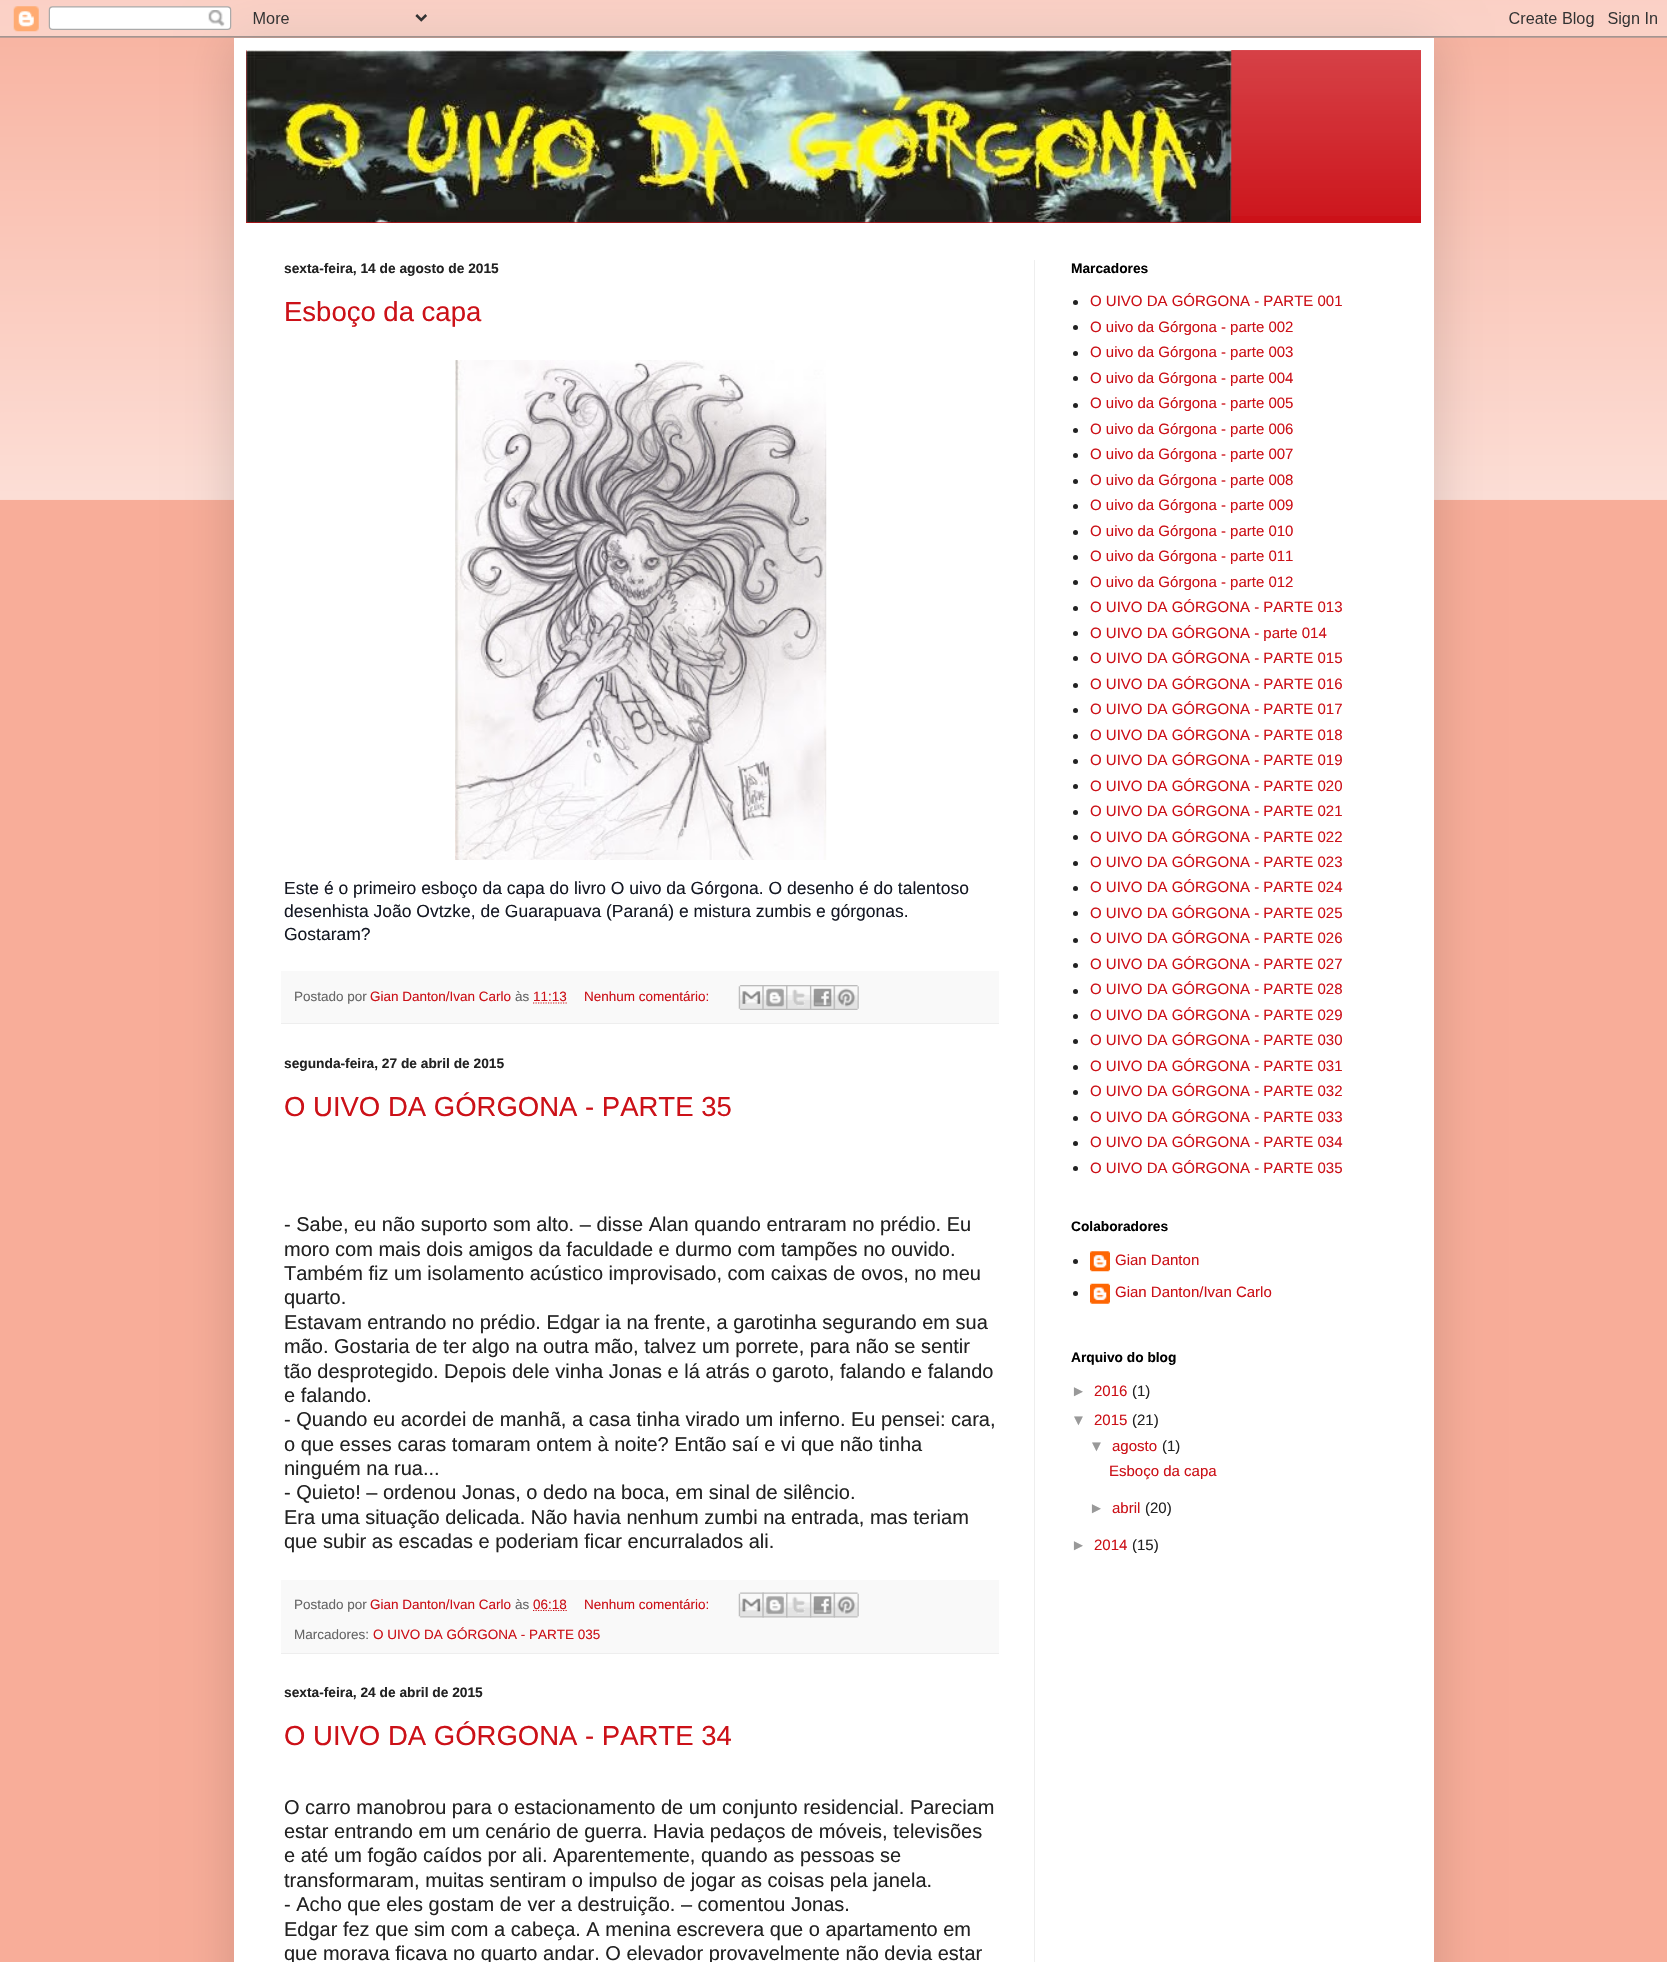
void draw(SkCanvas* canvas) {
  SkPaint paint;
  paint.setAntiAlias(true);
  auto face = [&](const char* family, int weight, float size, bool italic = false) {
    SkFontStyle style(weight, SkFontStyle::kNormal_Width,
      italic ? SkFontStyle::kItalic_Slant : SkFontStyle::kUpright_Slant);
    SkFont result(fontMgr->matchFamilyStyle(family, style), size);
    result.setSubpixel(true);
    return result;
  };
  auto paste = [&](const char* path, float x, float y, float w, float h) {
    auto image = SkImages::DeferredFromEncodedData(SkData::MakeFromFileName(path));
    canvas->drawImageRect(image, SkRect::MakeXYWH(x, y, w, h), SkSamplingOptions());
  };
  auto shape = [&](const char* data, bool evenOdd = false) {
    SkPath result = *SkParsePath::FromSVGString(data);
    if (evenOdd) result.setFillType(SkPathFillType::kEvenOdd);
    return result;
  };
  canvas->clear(0xfff8ad99);
  paste("img/1.png", 0, 0, 1667, 500);
  paint.setColor(0x26000000);
  paint.setMaskFilter(SkMaskFilter::MakeBlur(kNormal_SkBlurStyle, 25));
  canvas->drawRect(SkRect::MakeXYWH(234, 38, 1200, 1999), paint);
  paint.setMaskFilter(nullptr);
  paste("img/2.png", 0, 0, 1667, 38);
  paint.setColor(0xffffffff);
  canvas->drawRect(SkRect::MakeXYWH(234, 38, 1200, 1924), paint);
  paint.setColor(0xffcc1118);
  canvas->drawRect(SkRect::MakeXYWH(246, 50, 1175, 173), paint);
  paste("img/3.png", 246, 50, 1175, 166);
  paste("img/4.png", 246, 50, 986, 173);
  paint.setColor(0xffeeeeee);
  canvas->drawRect(SkRect::MakeXYWH(1034, 260, 1, 1702), paint);
  paste("img/5.png", 455, 360, 372, 500);
  paint.setColor(0xfff9f9f9);
  canvas->drawRect(SkRect::MakeXYWH(281, 971, 718, 52), paint);
  paint.setColor(0xffeeeeee);
  canvas->drawRect(SkRect::MakeXYWH(281, 1023, 718, 1), paint);
  paint.setStroke(true);
  paint.setStrokeWidth(1.2f);
  paint.setColor(0xffcc1118);
  paint.setPathEffect(SkDashPathEffect::Make({{1.25f, 1.25f}}, 0));
  canvas->drawPath(shape("M533 1003H567"), paint);
  paint.setPathEffect(nullptr);
  paste("img/6.png", 738, 985, 25, 25);
  paste("img/7.png", 762, 985, 25, 25);
  paste("img/8.png", 786, 985, 24, 25);
  paste("img/9.png", 810, 985, 24, 25);
  paste("img/10.png", 833, 985, 26, 25);
  paint.setStroke(false);
  paint.setColor(0xfff9f9f9);
  canvas->drawRect(SkRect::MakeXYWH(281, 1580, 718, 73), paint);
  paint.setColor(0xffeeeeee);
  canvas->drawRect(SkRect::MakeXYWH(281, 1653, 718, 1), paint);
  paint.setStroke(true);
  paint.setColor(0xffcc1118);
  paint.setPathEffect(SkDashPathEffect::Make({{1.25f, 1.25f}}, 0));
  canvas->drawPath(shape("M533 1610.5H567"), paint);
  paint.setPathEffect(nullptr);
  paste("img/11.png", 738, 1592, 26, 26);
  paste("img/12.png", 762, 1592, 26, 26);
  paste("img/13.png", 786, 1592, 26, 26);
  paste("img/14.png", 810, 1592, 25, 26);
  paste("img/15.png", 833, 1592, 26, 26);
  paint.setStroke(false);
  paint.setColor(0xff222222);
  canvas->drawCircle(1075.5f, 302.5f, 2.5f, paint);
  canvas->drawCircle(1075.5f, 327.5f, 2.5f, paint);
  canvas->drawCircle(1075.5f, 353.5f, 2.5f, paint);
  canvas->drawCircle(1075.5f, 378.5f, 2.5f, paint);
  canvas->drawCircle(1075.5f, 405.5f, 2.5f, paint);
  canvas->drawCircle(1075.5f, 430.5f, 2.5f, paint);
  canvas->drawCircle(1075.5f, 455.5f, 2.5f, paint);
  canvas->drawCircle(1075.5f, 481.5f, 2.5f, paint);
  canvas->drawCircle(1075.5f, 506.5f, 2.5f, paint);
  canvas->drawCircle(1075.5f, 532.5f, 2.5f, paint);
  canvas->drawCircle(1075.5f, 557.5f, 2.5f, paint);
  canvas->drawCircle(1075.5f, 582.5f, 2.5f, paint);
  canvas->drawCircle(1075.5f, 608.5f, 2.5f, paint);
  canvas->drawCircle(1075.5f, 633.5f, 2.5f, paint);
  canvas->drawCircle(1075.5f, 658.5f, 2.5f, paint);
  canvas->drawCircle(1075.5f, 685.5f, 2.5f, paint);
  canvas->drawCircle(1075.5f, 710.5f, 2.5f, paint);
  canvas->drawCircle(1075.5f, 736.5f, 2.5f, paint);
  canvas->drawCircle(1075.5f, 761.5f, 2.5f, paint);
  canvas->drawCircle(1075.5f, 786.5f, 2.5f, paint);
  canvas->drawCircle(1075.5f, 812.5f, 2.5f, paint);
  canvas->drawCircle(1075.5f, 837.5f, 2.5f, paint);
  canvas->drawCircle(1075.5f, 863.5f, 2.5f, paint);
  canvas->drawCircle(1075.5f, 888.5f, 2.5f, paint);
  canvas->drawCircle(1075.5f, 913.5f, 2.5f, paint);
  canvas->drawCircle(1075.5f, 940.5f, 2.5f, paint);
  canvas->drawCircle(1075.5f, 965.5f, 2.5f, paint);
  canvas->drawCircle(1075.5f, 991.5f, 2.5f, paint);
  canvas->drawCircle(1075.5f, 1016.5f, 2.5f, paint);
  canvas->drawCircle(1075.5f, 1041.5f, 2.5f, paint);
  canvas->drawCircle(1075.5f, 1067.5f, 2.5f, paint);
  canvas->drawCircle(1075.5f, 1092.5f, 2.5f, paint);
  canvas->drawCircle(1075.5f, 1118.5f, 2.5f, paint);
  canvas->drawCircle(1075.5f, 1143.5f, 2.5f, paint);
  canvas->drawCircle(1075.5f, 1168.5f, 2.5f, paint);
  canvas->drawCircle(1075.5f, 1261.5f, 2.5f, paint);
  paste("img/16.png", 1090, 1251, 20, 21);
  canvas->drawCircle(1075.5f, 1293.5f, 2.5f, paint);
  paste("img/17.png", 1090, 1283, 20, 21);
  auto f0 = face("Liberation Sans", 700, 13.75f);
  canvas->drawString("sexta-feira, 14 de agosto de 2015", 284, 273, f0, paint);
  auto f1 = face("Liberation Sans", 400, 27.5f);
  paint.setColor(0xffcc1118);
  canvas->drawString("Esboço da capa", 284, 321, f1, paint);
  auto f2 = face("Liberation Sans", 400, 17.5f);
  paint.setColor(0xff141823);
  {
    const struct { const char* s; float x, y; } items[] = {
      {"Este é o primeiro esboço da capa do livro O uivo da Górgona. O desenho é do talentoso", 284, 894},
      {"desenhista João Ovtzke, de Guarapuava (Paraná) e mistura zumbis e górgonas.", 284, 917},
      {"Gostaram?", 284, 940},
    };
    for (auto [s, x, y] : items) {
      canvas->drawString(s, x, y, f2, paint);
    }
  }
  auto f3 = face("Liberation Sans", 400, 13.5f);
  paint.setColor(0xff666666);
  canvas->drawString("Postado por", 294, 1001, f3, paint);
  paint.setColor(0xffcc1118);
  canvas->drawString("Gian Danton/Ivan Carlo", 370, 1001, f3, paint);
  paint.setColor(0xff666666);
  canvas->drawString("às", 515, 1001, f3, paint);
  paint.setColor(0xffcc1118);
  canvas->drawString("11:13", 533, 1001, f3, paint);
  canvas->drawString("Nenhum comentário:", 584, 1001, f3, paint);
  paint.setColor(0xff222222);
  canvas->drawString("segunda-feira, 27 de abril de 2015", 284, 1068, f0, paint);
  paint.setColor(0xffcc1118);
  canvas->drawString("O UIVO DA GÓRGONA - PARTE 35", 284, 1116, f1, paint);
  auto f4 = face("Liberation Sans", 400, 20);
  paint.setColor(0xff222222);
  {
    const struct { const char* s; float x, y; } items[] = {
      {"- Sabe, eu não suporto som alto. – disse Alan quando entraram no prédio. Eu", 284, 1231},
      {"moro com mais dois amigos da faculdade e durmo com tampões no ouvido.", 284, 1256},
      {"Também fiz um isolamento acústico improvisado, com caixas de ovos, no meu", 284, 1280},
      {"quarto.", 284, 1304},
      {"Estavam entrando no prédio. Edgar ia na frente, a garotinha segurando em sua", 284, 1329},
      {"mão. Gostaria de ter algo na outra mão, talvez um porrete, para não se sentir", 284, 1353},
      {"tão desprotegido. Depois dele vinha Jonas e lá atrás o garoto, falando e falando", 284, 1378},
      {"e falando.", 284, 1402},
      {"- Quando eu acordei de manhã, a casa tinha virado um inferno. Eu pensei: cara,", 284, 1426},
      {"o que esses caras tomaram ontem à noite? Então saí e vi que não tinha", 284, 1451},
      {"ninguém na rua...", 284, 1475},
      {"- Quieto! – ordenou Jonas, o dedo na boca, em sinal de silêncio.", 284, 1499},
      {"Era uma situação delicada. Não havia nenhum zumbi na entrada, mas teriam", 284, 1524},
      {"que subir as escadas e poderiam ficar encurralados ali.", 284, 1548},
    };
    for (auto [s, x, y] : items) {
      canvas->drawString(s, x, y, f4, paint);
    }
  }
  paint.setColor(0xff666666);
  canvas->drawString("Postado por", 294, 1609, f3, paint);
  paint.setColor(0xffcc1118);
  canvas->drawString("Gian Danton/Ivan Carlo", 370, 1609, f3, paint);
  paint.setColor(0xff666666);
  canvas->drawString("às", 515, 1609, f3, paint);
  paint.setColor(0xffcc1118);
  canvas->drawString("06:18", 533, 1609, f3, paint);
  canvas->drawString("Nenhum comentário:", 584, 1609, f3, paint);
  paint.setColor(0xff666666);
  canvas->drawString("Marcadores:", 294, 1639, f3, paint);
  paint.setColor(0xffcc1118);
  canvas->drawString("O UIVO DA GÓRGONA - PARTE 035", 373, 1639, f3, paint);
  paint.setColor(0xff222222);
  canvas->drawString("sexta-feira, 24 de abril de 2015", 284, 1697, f0, paint);
  paint.setColor(0xffcc1118);
  canvas->drawString("O UIVO DA GÓRGONA - PARTE 34", 284, 1745, f1, paint);
  paint.setColor(0xff222222);
  {
    const struct { const char* s; float x, y; } items[] = {
      {"O carro manobrou para o estacionamento de um conjunto residencial. Pareciam", 284, 1814},
      {"estar entrando em um cenário de guerra. Havia pedaços de móveis, televisões", 284, 1838},
      {"e até um fogão caídos por ali. Aparentemente, quando as pessoas se", 284, 1862},
      {"transformaram, muitas sentiram o impulso de jogar as coisas pela janela.", 284, 1887},
      {"- Acho que eles gostam de ver a destruição. – comentou Jonas.", 284, 1911},
      {"Edgar fez que sim com a cabeça. A menina escrevera que o apartamento em", 284, 1936},
      {"que morava ficava no quarto andar. O elevador provavelmente não devia estar", 284, 1960},
    };
    for (auto [s, x, y] : items) {
      canvas->drawString(s, x, y, f4, paint);
    }
  }
  paint.setColor(0xff000000);
  canvas->drawString("Marcadores", 1071, 273, f0, paint);
  auto f5 = face("Liberation Sans", 400, 15);
  paint.setColor(0xffcc1118);
  {
    const struct { const char* s; float x, y; } items[] = {
      {"O UIVO DA GÓRGONA - PARTE 001", 1090, 306},
      {"O uivo da Górgona - parte 002", 1090, 332},
      {"O uivo da Górgona - parte 003", 1090, 357},
      {"O uivo da Górgona - parte 004", 1090, 383},
      {"O uivo da Górgona - parte 005", 1090, 408},
      {"O uivo da Górgona - parte 006", 1090, 434},
      {"O uivo da Górgona - parte 007", 1090, 459},
      {"O uivo da Górgona - parte 008", 1090, 485},
      {"O uivo da Górgona - parte 009", 1090, 510},
      {"O uivo da Górgona - parte 010", 1090, 536},
      {"O uivo da Górgona - parte 011", 1090, 561},
      {"O uivo da Górgona - parte 012", 1090, 587},
      {"O UIVO DA GÓRGONA - PARTE 013", 1090, 612},
      {"O UIVO DA GÓRGONA - parte 014", 1090, 638},
      {"O UIVO DA GÓRGONA - PARTE 015", 1090, 663},
      {"O UIVO DA GÓRGONA - PARTE 016", 1090, 689},
      {"O UIVO DA GÓRGONA - PARTE 017", 1090, 714},
      {"O UIVO DA GÓRGONA - PARTE 018", 1090, 740},
      {"O UIVO DA GÓRGONA - PARTE 019", 1090, 765},
      {"O UIVO DA GÓRGONA - PARTE 020", 1090, 791},
      {"O UIVO DA GÓRGONA - PARTE 021", 1090, 816},
      {"O UIVO DA GÓRGONA - PARTE 022", 1090, 842},
      {"O UIVO DA GÓRGONA - PARTE 023", 1090, 867},
      {"O UIVO DA GÓRGONA - PARTE 024", 1090, 892},
      {"O UIVO DA GÓRGONA - PARTE 025", 1090, 918},
      {"O UIVO DA GÓRGONA - PARTE 026", 1090, 943},
      {"O UIVO DA GÓRGONA - PARTE 027", 1090, 969},
      {"O UIVO DA GÓRGONA - PARTE 028", 1090, 994},
      {"O UIVO DA GÓRGONA - PARTE 029", 1090, 1020},
      {"O UIVO DA GÓRGONA - PARTE 030", 1090, 1045},
      {"O UIVO DA GÓRGONA - PARTE 031", 1090, 1071},
      {"O UIVO DA GÓRGONA - PARTE 032", 1090, 1096},
      {"O UIVO DA GÓRGONA - PARTE 033", 1090, 1122},
      {"O UIVO DA GÓRGONA - PARTE 034", 1090, 1147},
      {"O UIVO DA GÓRGONA - PARTE 035", 1090, 1173},
    };
    for (auto [s, x, y] : items) {
      canvas->drawString(s, x, y, f5, paint);
    }
  }
  paint.setColor(0xff000000);
  canvas->drawString("Colaboradores", 1071, 1231, f0, paint);
  paint.setColor(0xffcc1118);
  canvas->drawString("Gian Danton", 1115, 1265, f5, paint);
  canvas->drawString("Gian Danton/Ivan Carlo", 1115, 1297, f5, paint);
  paint.setColor(0xff000000);
  canvas->drawString("Arquivo do blog", 1071, 1362, f0, paint);
  paint.setColor(0xff999999);
  canvas->drawString("►", 1071, 1396, f5, paint);
  paint.setColor(0xffcc1118);
  canvas->drawString("2016", 1094, 1396, f5, paint);
  paint.setColor(0xff222222);
  canvas->drawString("(1)", 1132, 1396, f5, paint);
  paint.setColor(0xff999999);
  canvas->drawString("▼", 1071, 1425, f5, paint);
  paint.setColor(0xffcc1118);
  canvas->drawString("2015", 1094, 1425, f5, paint);
  paint.setColor(0xff222222);
  canvas->drawString("(21)", 1132, 1425, f5, paint);
  paint.setColor(0xff999999);
  canvas->drawString("▼", 1089, 1451, f5, paint);
  paint.setColor(0xffcc1118);
  canvas->drawString("agosto", 1112, 1451, f5, paint);
  paint.setColor(0xff222222);
  canvas->drawString("(1)", 1162, 1451, f5, paint);
  paint.setColor(0xffcc1118);
  canvas->drawString("Esboço da capa", 1109, 1476, f5, paint);
  paint.setColor(0xff999999);
  canvas->drawString("►", 1089, 1513, f5, paint);
  paint.setColor(0xffcc1118);
  canvas->drawString("abril", 1112, 1513, f5, paint);
  paint.setColor(0xff222222);
  canvas->drawString("(20)", 1145, 1513, f5, paint);
  paint.setColor(0xff999999);
  canvas->drawString("►", 1071, 1550, f5, paint);
  paint.setColor(0xffcc1118);
  canvas->drawString("2014", 1094, 1550, f5, paint);
  paint.setColor(0xff222222);
  canvas->drawString("(15)", 1132, 1550, f5, paint);
}
